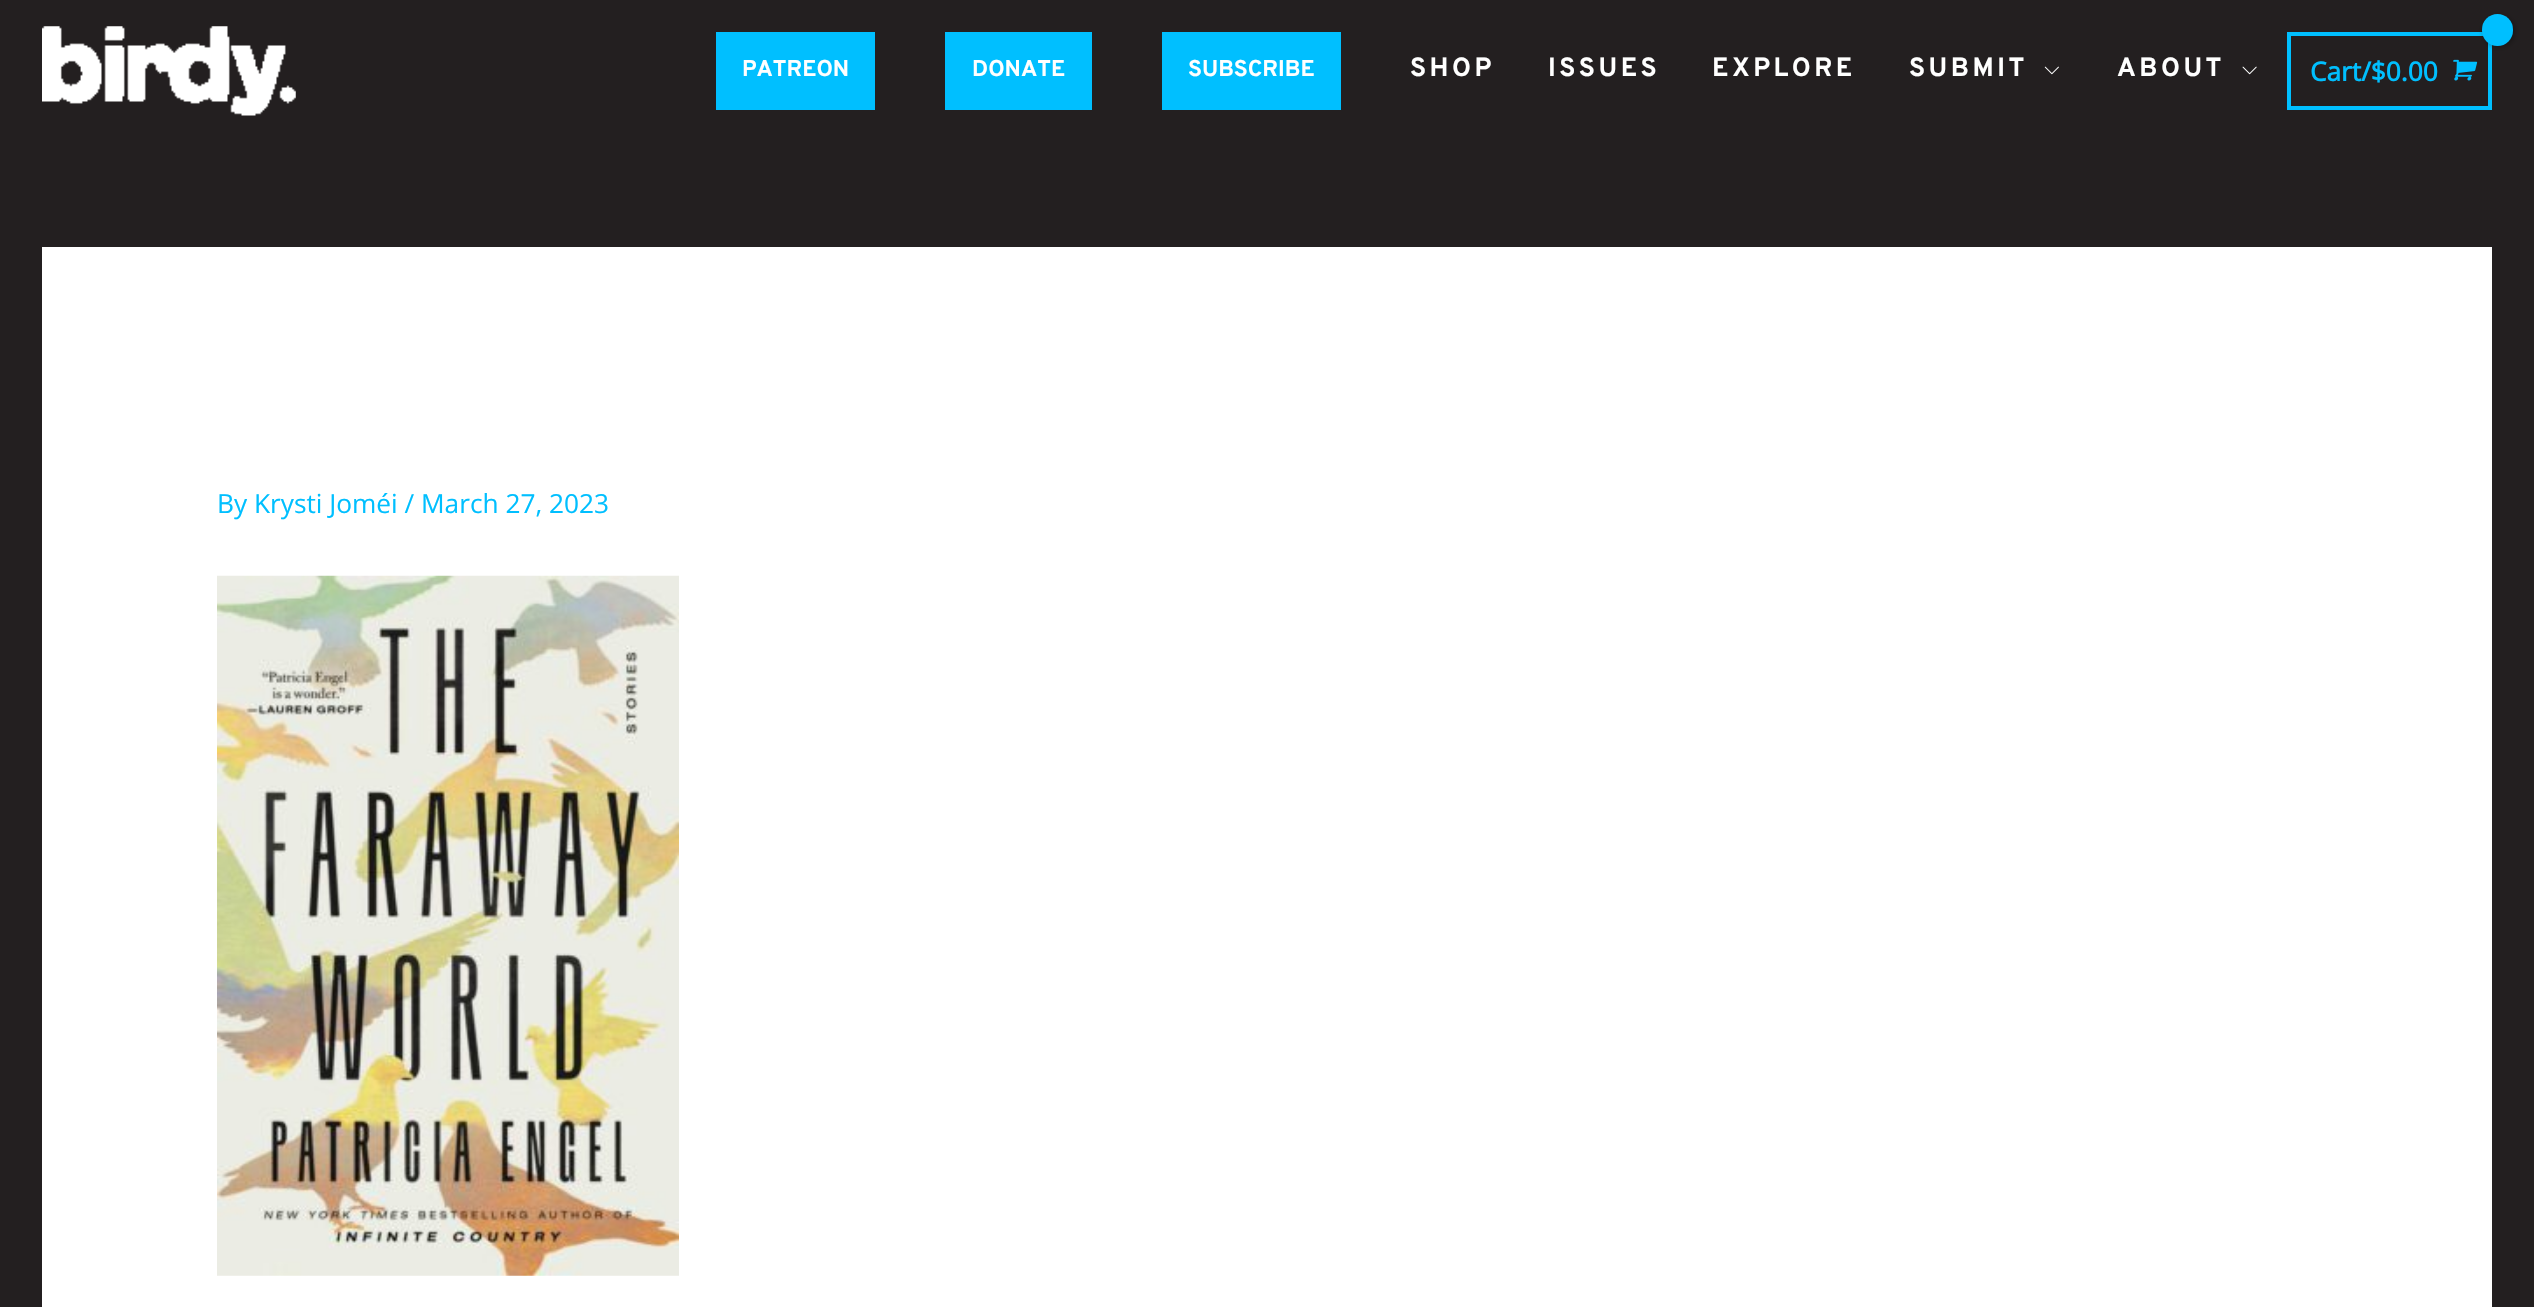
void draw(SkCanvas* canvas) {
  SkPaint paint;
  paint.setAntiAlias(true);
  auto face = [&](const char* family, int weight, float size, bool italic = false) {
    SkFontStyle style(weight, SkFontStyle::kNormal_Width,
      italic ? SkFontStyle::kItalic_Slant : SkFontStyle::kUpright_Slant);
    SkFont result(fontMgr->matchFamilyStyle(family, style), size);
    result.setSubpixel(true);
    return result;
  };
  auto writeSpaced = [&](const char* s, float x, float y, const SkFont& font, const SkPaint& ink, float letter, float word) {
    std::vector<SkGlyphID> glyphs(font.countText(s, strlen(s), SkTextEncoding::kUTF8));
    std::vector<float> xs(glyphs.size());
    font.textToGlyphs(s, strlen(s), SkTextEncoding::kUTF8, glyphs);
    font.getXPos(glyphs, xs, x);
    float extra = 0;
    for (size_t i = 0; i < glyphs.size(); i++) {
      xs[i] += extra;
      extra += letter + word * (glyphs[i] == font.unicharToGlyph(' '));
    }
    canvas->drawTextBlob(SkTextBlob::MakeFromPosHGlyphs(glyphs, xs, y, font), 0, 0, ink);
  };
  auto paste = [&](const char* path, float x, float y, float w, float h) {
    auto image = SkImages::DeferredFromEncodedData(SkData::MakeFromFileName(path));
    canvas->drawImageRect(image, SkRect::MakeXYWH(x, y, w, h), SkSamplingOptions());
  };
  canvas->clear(0xff231f20);
  paste("img/1.png", 42, 26, 254, 90);
  {
    const struct { float x, y, w, h; SkColor color; } items[] = {
      {716, 32, 159, 78, 0xff00bfff},
      {945, 32, 147, 78, 0xff00bfff},
      {1162, 32, 179, 78, 0xff00bfff},
    };
    for (auto [x, y, w, h, color] : items) {
      paint.setColor(color);
      canvas->drawRect(SkRect::MakeXYWH(x, y, w, h), paint);
    }
  }
  paste("img/2.png", 2044, 66, 15, 9);
  paste("img/3.png", 2242, 66, 15, 9);
  paint.setStroke(true);
  paint.setStrokeWidth(4);
  canvas->drawRect(SkRect::MakeXYWH(2289, 34, 201, 74), paint);
  paint.setStroke(false);
  paint.setColor(0x4d000000);
  paint.setMaskFilter(SkMaskFilter::MakeBlur(kNormal_SkBlurStyle, 2.5f));
  canvas->drawRoundRect(SkRect::MakeXYWH(2483, 16, 32, 31), 15.5f, 15.5f, paint);
  paint.setMaskFilter(nullptr);
  paint.setColor(0xff00bfff);
  canvas->drawRoundRect(SkRect::MakeXYWH(2482, 14, 31, 32), 15.5f, 15.5f, paint);
  paste("img/4.png", 2453, 59, 25, 22);
  paint.setColor(0xffffffff);
  canvas->drawRect(SkRect::MakeXYWH(42, 247, 2450, 1060), paint);
  paste("img/5.png", 217, 575, 462, 701);
  auto f0 = face("Overpass", 700, 22.75f);
  {
    const struct { const char* s; float x, y; } items[] = {
      {"PATREON", 742, 76},
      {"DONATE", 972, 76},
      {"SUBSCRIBE", 1188, 76},
    };
    for (auto [s, x, y] : items) {
      canvas->drawString(s, x, y, f0, paint);
    }
  }
  auto f1 = face("Overpass", 700, 26.25f);
  {
    const struct { const char* s; float x, y; } items[] = {
      {"SHOP", 1410, 76},
      {"ISSUES", 1548, 76},
      {"EXPLORE", 1712, 76},
      {"SUBMIT", 1909, 76},
      {"ABOUT", 2117, 76},
    };
    for (auto [s, x, y] : items) {
      writeSpaced(s, x, y, f1, paint, 3.5f, 0);
    }
  }
  auto f2 = face("Open Sans", 700, 26.25f);
  paint.setColor(0xff00bfff);
  canvas->drawString("Cart/$0.00", 2310, 81, f2, paint);
  auto f3 = face("Open Sans", 400, 26.25f);
  canvas->drawString("By Krysti Joméi / March 27, 2023", 217, 513, f3, paint);
}
